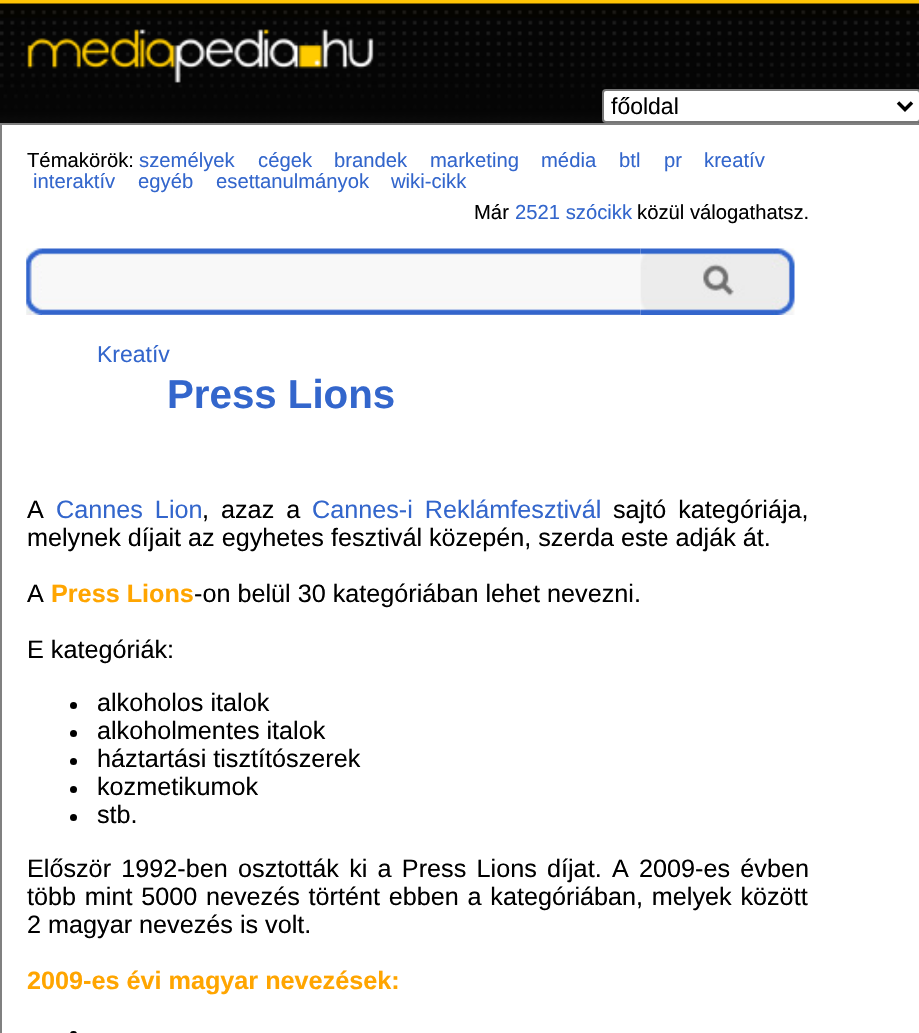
void draw(SkCanvas* canvas) {
  SkPaint paint;
  paint.setAntiAlias(true);
  auto face = [&](const char* family, int weight, float size, bool italic = false) {
    SkFontStyle style(weight, SkFontStyle::kNormal_Width,
      italic ? SkFontStyle::kItalic_Slant : SkFontStyle::kUpright_Slant);
    SkFont result(fontMgr->matchFamilyStyle(family, style), size);
    result.setSubpixel(true);
    return result;
  };
  auto writeSpaced = [&](const char* s, float x, float y, const SkFont& font, const SkPaint& ink, float letter, float word) {
    std::vector<SkGlyphID> glyphs(font.countText(s, strlen(s), SkTextEncoding::kUTF8));
    std::vector<float> xs(glyphs.size());
    font.textToGlyphs(s, strlen(s), SkTextEncoding::kUTF8, glyphs);
    font.getXPos(glyphs, xs, x);
    float extra = 0;
    for (size_t i = 0; i < glyphs.size(); i++) {
      xs[i] += extra;
      extra += letter + word * (glyphs[i] == font.unicharToGlyph(' '));
    }
    canvas->drawTextBlob(SkTextBlob::MakeFromPosHGlyphs(glyphs, xs, y, font), 0, 0, ink);
  };
  auto paste = [&](const char* path, float x, float y, float w, float h) {
    auto image = SkImages::DeferredFromEncodedData(SkData::MakeFromFileName(path));
    canvas->drawImageRect(image, SkRect::MakeXYWH(x, y, w, h), SkSamplingOptions());
  };
  auto shape = [&](const char* data, bool evenOdd = false) {
    SkPath result = *SkParsePath::FromSVGString(data);
    if (evenOdd) result.setFillType(SkPathFillType::kEvenOdd);
    return result;
  };
  canvas->clear(0xffffffff);
  paste("img/1.png", 0, 0, 919, 123);
  paste("img/2.png", 0, 10, 382, 78);
  paint.setColor(0xffffffff);
  canvas->drawRoundRect(SkRect::MakeXYWH(603, 90, 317, 32), 3, 3, paint);
  paint.setStroke(true);
  paint.setStrokeWidth(2);
  paint.setColor(0xff767676);
  canvas->drawRoundRect(SkRect::MakeXYWH(603, 90, 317, 32), 3, 3, paint);
  paint.setStrokeWidth(3.5f);
  paint.setColor(0xff000000);
  canvas->drawPath(shape("M898 102.5L905 109.5L912 102.5"), paint);
  paint.setStrokeWidth(2);
  paint.setColor(0xff808080);
  canvas->drawRect(SkRect::MakeXYWH(1, 124, 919, 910), paint);
  paste("img/3.png", 26, 248, 16, 67);
  paste("img/4.png", 42, 248, 599, 67);
  paste("img/5.png", 640, 248, 155, 67);
  paint.setStroke(false);
  paint.setColor(0xff000000);
  canvas->drawCircle(73.5f, 705.5f, 3.5f, paint);
  canvas->drawCircle(73.5f, 733.5f, 3.5f, paint);
  canvas->drawCircle(73.5f, 761.5f, 3.5f, paint);
  canvas->drawCircle(73.5f, 789.5f, 3.5f, paint);
  canvas->drawCircle(73.5f, 817.5f, 3.5f, paint);
  canvas->drawRoundRect(SkRect::MakeXYWH(70, 1031, 7, 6), 3.5f, 3.5f, paint);
  auto f0 = face("Liberation Sans", 400, 23);
  canvas->drawString("főoldal", 611, 114, f0, paint);
  auto f1 = face("Liberation Sans", 400, 20.25f);
  canvas->drawString("Témakörök:", 27, 167, f1, paint);
  paint.setColor(0xff3366cc);
  {
    const struct { const char* s; float x, y; } items[] = {
      {"személyek", 139, 167},
      {"cégek", 258, 167},
      {"brandek", 334, 167},
      {"marketing", 430, 167},
      {"média", 541, 167},
      {"btl", 619, 167},
      {"pr", 664, 167},
      {"kreatív", 704, 167},
      {"interaktív", 33, 188},
      {"egyéb", 138, 188},
      {"esettanulmányok", 216, 188},
      {"wiki-cikk", 391, 188},
    };
    for (auto [s, x, y] : items) {
      canvas->drawString(s, x, y, f1, paint);
    }
  }
  paint.setColor(0xff000000);
  canvas->drawString("Már", 474, 219, f1, paint);
  paint.setColor(0xff3366cc);
  canvas->drawString("2521 szócikk", 515, 219, f1, paint);
  paint.setColor(0xff000000);
  canvas->drawString("közül válogathatsz.", 637, 219, f1, paint);
  paint.setColor(0xff3366cc);
  canvas->drawString("Kreatív", 97, 362, f0, paint);
  auto f2 = face("Liberation Sans", 700, 40.25f);
  canvas->drawString("Press Lions", 167, 408, f2, paint);
  auto f3 = face("Liberation Sans", 400, 25.2f);
  paint.setColor(0xff000000);
  canvas->drawString("A", 27, 518, f3, paint);
  paint.setColor(0xff3366cc);
  writeSpaced("Cannes Lion", 56, 518, f3, paint, 0, 5);
  paint.setColor(0xff000000);
  writeSpaced(", azaz a", 202, 518, f3, paint, 0, 5);
  paint.setColor(0xff3366cc);
  writeSpaced("Cannes-i Reklámfesztivál", 312, 518, f3, paint, 0, 5);
  paint.setColor(0xff000000);
  writeSpaced("sajtó kategóriája,", 613, 518, f3, paint, 0, 5);
  canvas->drawString("melynek díjait az egyhetes fesztivál közepén, szerda este adják át.", 27, 546, f3, paint);
  canvas->drawString("A", 27, 602, f3, paint);
  auto f4 = face("Liberation Sans", 700, 25.2f);
  paint.setColor(0xffffa500);
  canvas->drawString("Press Lions", 51, 602, f4, paint);
  paint.setColor(0xff000000);
  {
    const struct { const char* s; float x, y; } items[] = {
      {"-on belül 30 kategóriában lehet nevezni.", 194, 602},
      {"E kategóriák:", 27, 658},
      {"alkoholos italok", 97, 711},
      {"alkoholmentes italok", 97, 739},
      {"háztartási tisztítószerek", 97, 767},
      {"kozmetikumok", 97, 795},
      {"stb.", 97, 823},
    };
    for (auto [s, x, y] : items) {
      canvas->drawString(s, x, y, f3, paint);
    }
  }
  writeSpaced("Először 1992-ben osztották ki a Press Lions díjat. A 2009-es évben", 27, 877, f3, paint, 0, 3.25f);
  writeSpaced("több mint 5000 nevezés történt ebben a kategóriában, melyek között", 27, 905, f3, paint, 0, 1.75f);
  canvas->drawString("2 magyar nevezés is volt.", 27, 933, f3, paint);
  paint.setColor(0xffffa500);
  canvas->drawString("2009-es évi magyar nevezések:", 27, 989, f4, paint);
}
